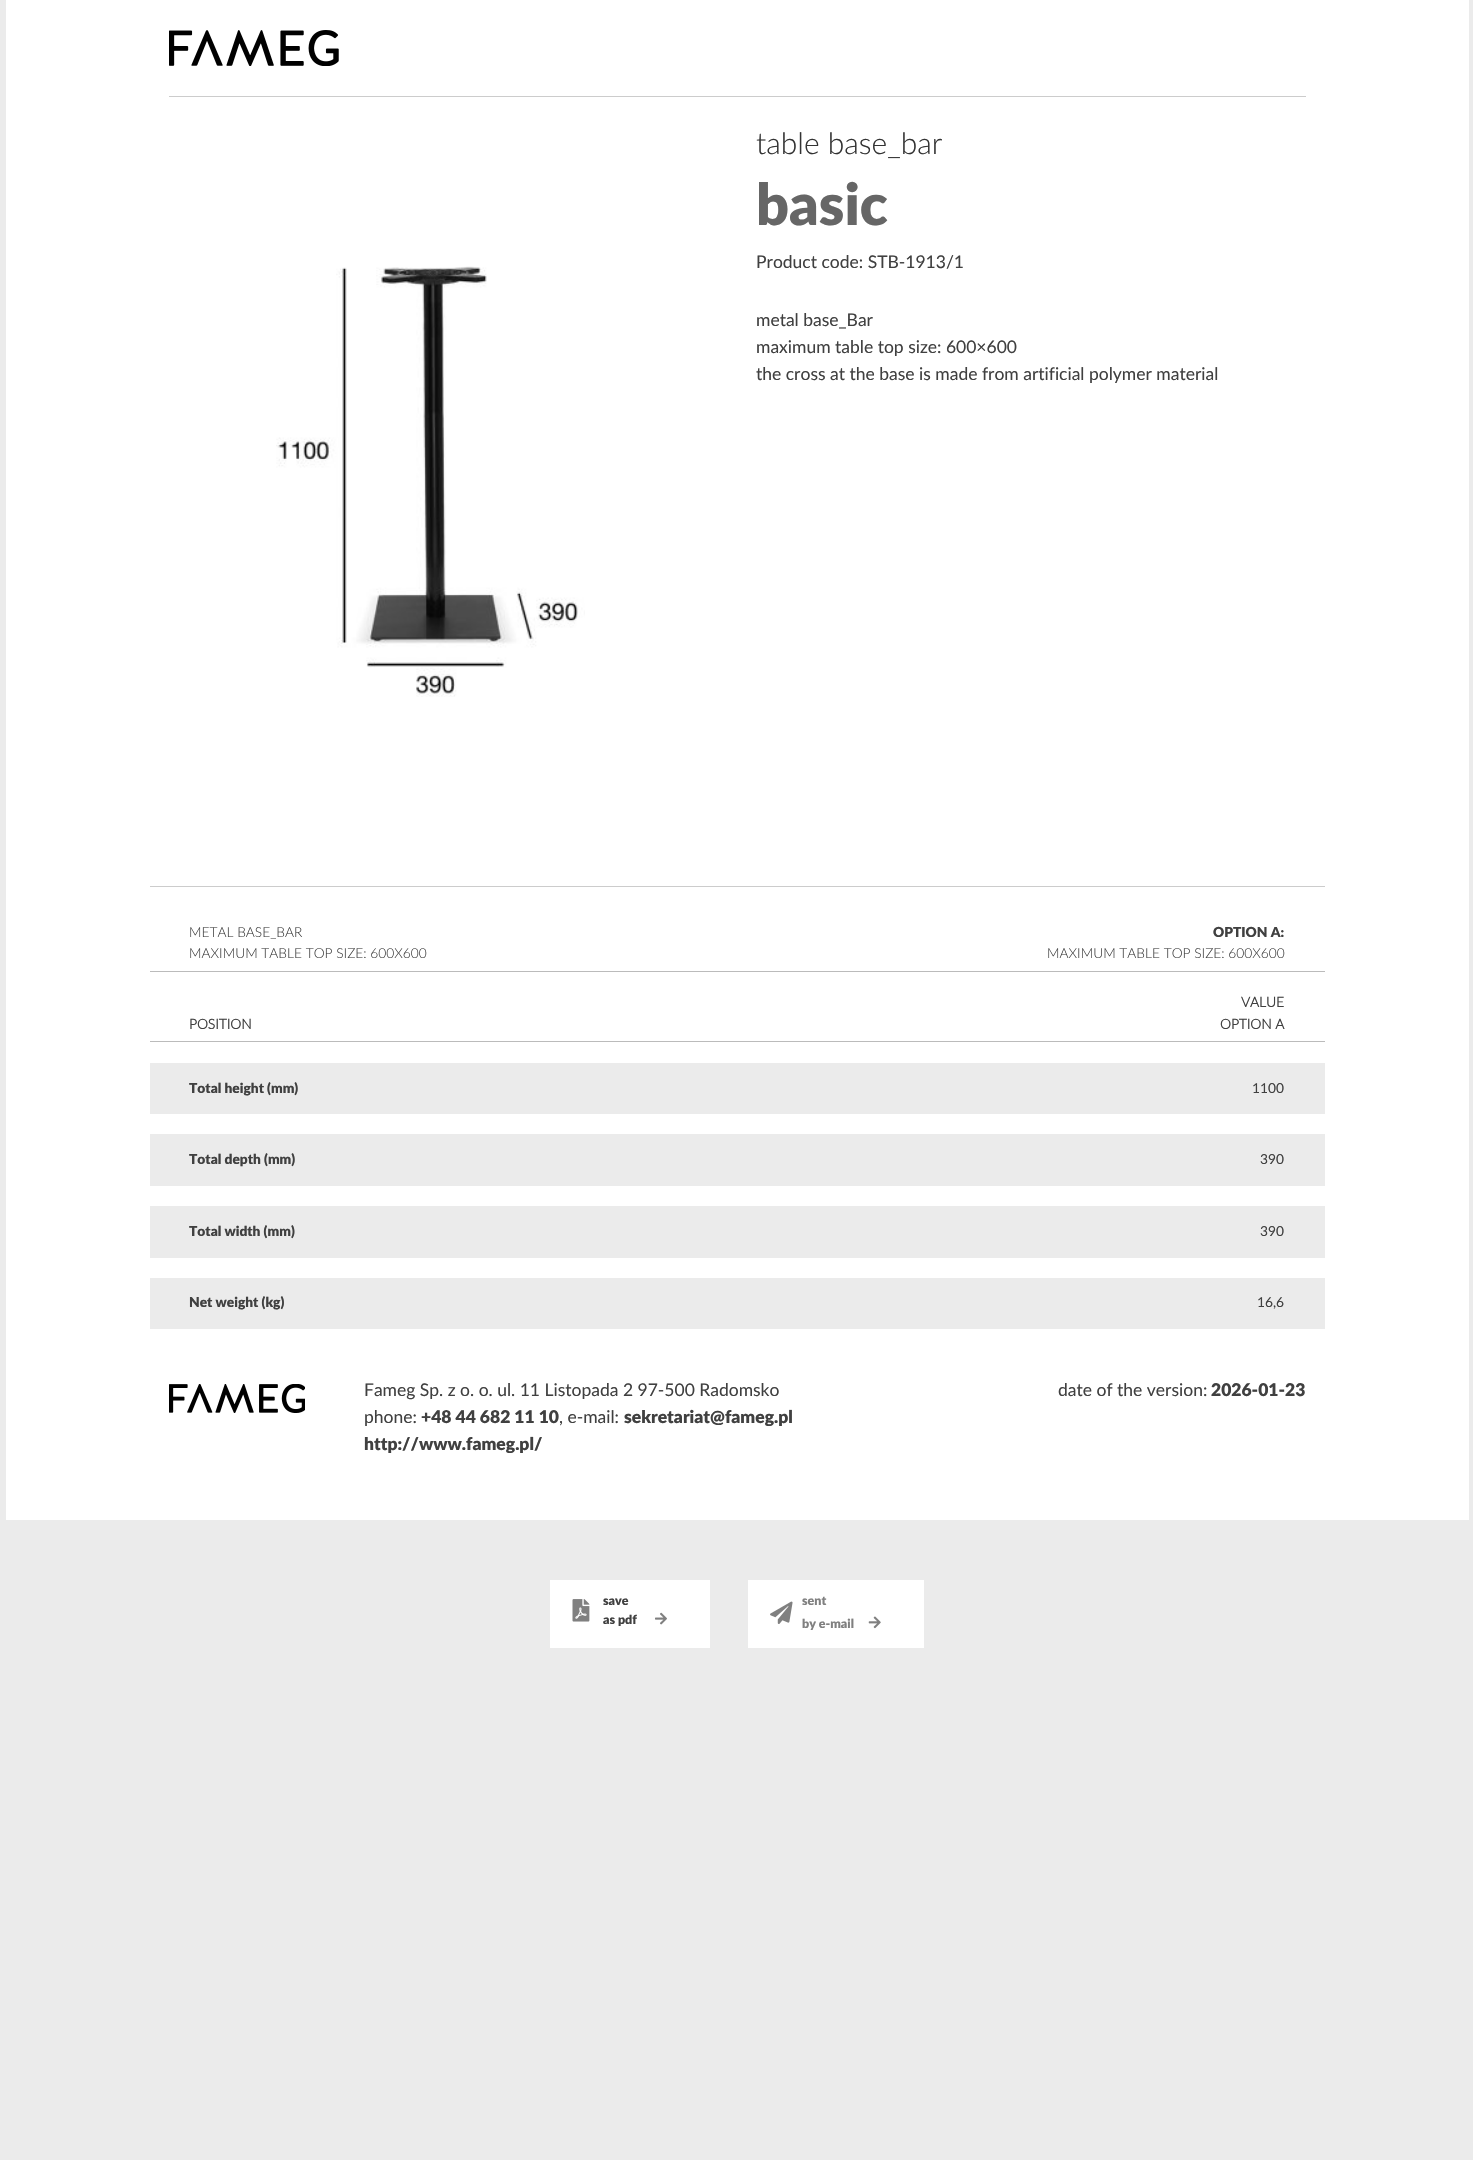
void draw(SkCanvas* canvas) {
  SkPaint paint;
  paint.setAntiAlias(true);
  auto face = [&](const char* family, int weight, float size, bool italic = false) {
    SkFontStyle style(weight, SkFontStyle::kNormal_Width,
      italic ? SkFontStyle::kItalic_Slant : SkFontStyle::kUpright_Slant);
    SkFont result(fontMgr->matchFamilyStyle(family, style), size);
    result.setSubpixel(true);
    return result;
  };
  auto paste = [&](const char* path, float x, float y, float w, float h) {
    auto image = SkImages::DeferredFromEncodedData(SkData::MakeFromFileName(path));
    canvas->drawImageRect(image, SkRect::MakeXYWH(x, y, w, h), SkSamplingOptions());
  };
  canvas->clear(0xffebebeb);
  paint.setColor(0xffffffff);
  canvas->drawRect(SkRect::MakeXYWH(6, 0, 1463, 1520), paint);
  paste("img/1.png", 169, 30, 170, 36);
  paint.setColor(0xffcccccc);
  canvas->drawRect(SkRect::MakeXYWH(169, 96, 1137, 1), paint);
  paste("img/2.png", 276, 266, 309, 431);
  {
    const struct { float x, y, w, h; SkColor color; } items[] = {
      {150, 886, 1175, 1, 0xffcccccc},
      {150, 971, 1175, 1, 0xffbbbbbb},
      {150, 1041, 1175, 1, 0xffbbbbbb},
      {150, 1063, 1175, 51, 0xffebebeb},
      {150, 1134, 1175, 52, 0xffebebeb},
      {150, 1206, 1175, 52, 0xffebebeb},
      {150, 1278, 1175, 51, 0xffebebeb},
    };
    for (auto [x, y, w, h, color] : items) {
      paint.setColor(color);
      canvas->drawRect(SkRect::MakeXYWH(x, y, w, h), paint);
    }
  }
  paste("img/3.png", 169, 1384, 136, 29);
  paint.setColor(0xffffffff);
  canvas->drawRect(SkRect::MakeXYWH(550, 1580, 160, 68), paint);
  paste("img/4.png", 572, 1599, 18, 23);
  paste("img/5.png", 655, 1612, 12, 13);
  canvas->drawRect(SkRect::MakeXYWH(748, 1580, 176, 68), paint);
  paste("img/6.png", 770, 1601, 23, 23);
  paste("img/7.png", 868, 1616, 13, 13);
  auto f0 = face("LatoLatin", 300, 30);
  paint.setColor(0xff333333);
  canvas->drawString("table base_bar", 756, 154, f0, paint);
  auto f1 = face("LatoLatin", 900, 57.5f);
  paint.setColor(0xff666666);
  canvas->drawString("basic", 756, 225, f1, paint);
  auto f2 = face("LatoLatin", 400, 17.5f);
  paint.setColor(0xff404040);
  {
    const struct { const char* s; float x, y; } items[] = {
      {"Product code: STB-1913/1", 756, 268},
      {"metal base_Bar", 756, 326},
      {"maximum table top size: 600×600", 756, 353},
      {"the cross at the base is made from artificial polymer material", 756, 380},
    };
    for (auto [s, x, y] : items) {
      canvas->drawString(s, x, y, f2, paint);
    }
  }
  auto f3 = face("LatoLatin", 300, 13.75f);
  canvas->drawString("METAL BASE_BAR", 189, 937, f3, paint);
  canvas->drawString("MAXIMUM TABLE TOP SIZE: 600X600", 189, 958, f3, paint);
  auto f4 = face("LatoLatin", 900, 13.75f);
  canvas->drawString("OPTION A:", 1213, 937, f4, paint);
  canvas->drawString("MAXIMUM TABLE TOP SIZE: 600X600", 1047, 958, f3, paint);
  auto f5 = face("LatoLatin", 700, 13.75f);
  {
    const struct { const char* s; float x, y; } items[] = {
      {"POSITION", 189, 1029},
      {"VALUE", 1241, 1007},
      {"OPTION A", 1220, 1029},
    };
    for (auto [s, x, y] : items) {
      canvas->drawString(s, x, y, f5, paint);
    }
  }
  canvas->drawString("Total height (mm)", 189, 1093, f4, paint);
  auto f6 = face("LatoLatin", 400, 13.75f);
  canvas->drawString("1100", 1252, 1093, f6, paint);
  canvas->drawString("Total depth (mm)", 189, 1164, f4, paint);
  canvas->drawString("390", 1260, 1164, f6, paint);
  canvas->drawString("Total width (mm)", 189, 1236, f4, paint);
  canvas->drawString("390", 1260, 1236, f6, paint);
  canvas->drawString("Net weight (kg)", 189, 1307, f4, paint);
  canvas->drawString("16,6", 1257, 1307, f6, paint);
  canvas->drawString("Fameg Sp. z o. o. ul. 11 Listopada 2 97-500 Radomsko", 364, 1396, f2, paint);
  canvas->drawString("phone:", 364, 1423, f2, paint);
  auto f7 = face("LatoLatin", 900, 17.5f);
  canvas->drawString("+48 44 682 11 10", 421, 1423, f7, paint);
  canvas->drawString(", e-mail:", 559, 1423, f2, paint);
  canvas->drawString("sekretariat@fameg.pl", 624, 1423, f7, paint);
  canvas->drawString("http://www.fameg.pl/", 364, 1450, f7, paint);
  canvas->drawString("date of the version:", 1058, 1396, f2, paint);
  canvas->drawString("2026-01-23", 1211, 1396, f7, paint);
  auto f8 = face("LatoLatin", 900, 12.5f);
  canvas->drawString("save", 603, 1605, f8, paint);
  canvas->drawString("as pdf", 603, 1624, f8, paint);
  paint.setColor(0xff808080);
  canvas->drawString("sent", 802, 1605, f8, paint);
  canvas->drawString("by e-mail", 802, 1628, f8, paint);
}
